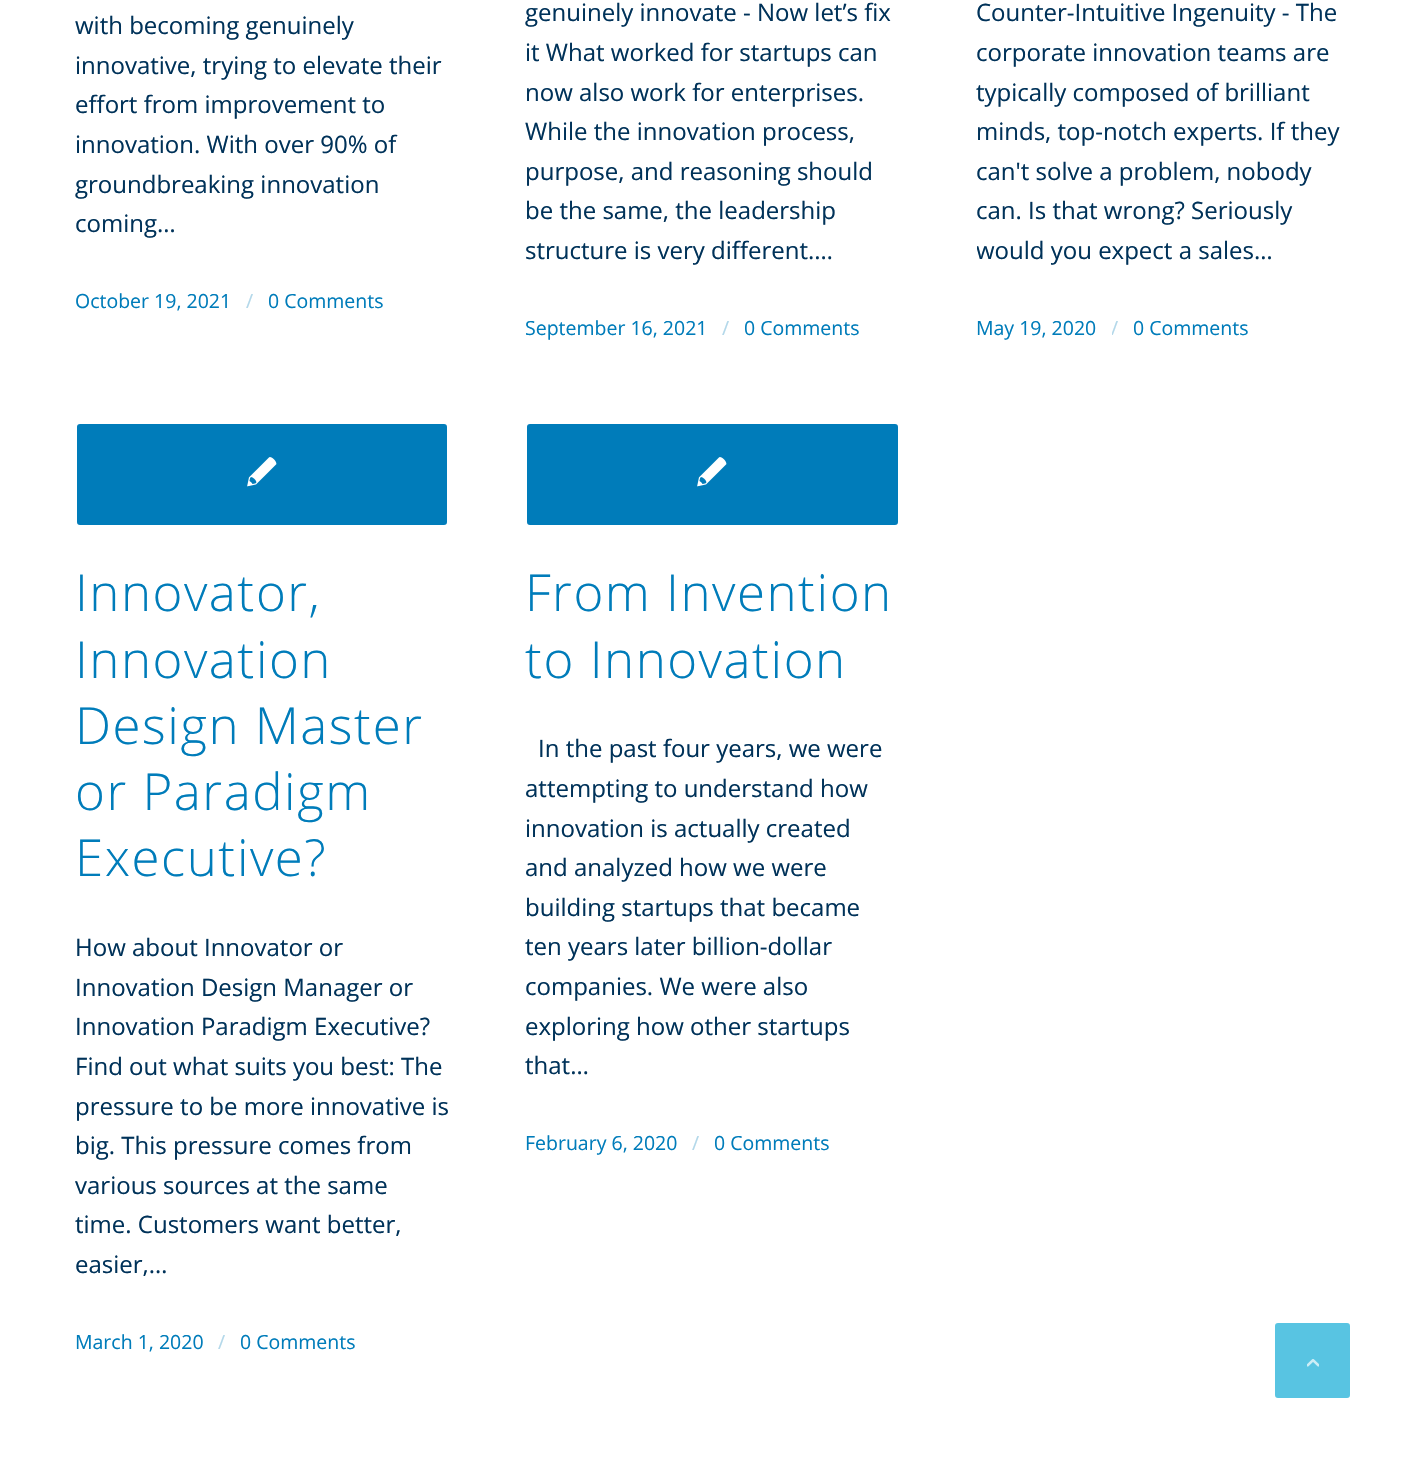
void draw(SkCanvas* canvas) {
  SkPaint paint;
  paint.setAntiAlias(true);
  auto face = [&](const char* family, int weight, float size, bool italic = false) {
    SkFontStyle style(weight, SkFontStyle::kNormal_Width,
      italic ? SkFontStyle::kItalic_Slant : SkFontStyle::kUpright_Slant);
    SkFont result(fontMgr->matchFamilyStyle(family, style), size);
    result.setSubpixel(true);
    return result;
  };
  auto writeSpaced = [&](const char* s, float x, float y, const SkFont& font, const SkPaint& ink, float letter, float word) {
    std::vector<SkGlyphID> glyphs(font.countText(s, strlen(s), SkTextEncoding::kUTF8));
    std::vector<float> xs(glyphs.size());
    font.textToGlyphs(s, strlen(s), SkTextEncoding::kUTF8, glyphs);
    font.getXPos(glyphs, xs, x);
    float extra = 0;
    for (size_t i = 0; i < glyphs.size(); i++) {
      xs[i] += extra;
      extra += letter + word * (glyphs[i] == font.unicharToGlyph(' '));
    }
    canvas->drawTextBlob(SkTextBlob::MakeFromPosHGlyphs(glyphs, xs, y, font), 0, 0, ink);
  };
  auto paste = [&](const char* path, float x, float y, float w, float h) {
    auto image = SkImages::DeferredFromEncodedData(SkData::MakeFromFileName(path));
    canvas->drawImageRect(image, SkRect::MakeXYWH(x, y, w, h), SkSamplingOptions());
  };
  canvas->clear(0xffffffff);
  paint.setColor(0xff007cba);
  canvas->drawRoundRect(SkRect::MakeXYWH(76, 423, 372, 103), 4, 4, paint);
  paint.setStroke(true);
  paint.setStrokeWidth(2);
  paint.setColor(0xffffffff);
  canvas->drawRoundRect(SkRect::MakeXYWH(76, 423, 372, 103), 4, 4, paint);
  paste("img/1.png", 247, 457, 30, 30);
  paint.setStroke(false);
  paint.setColor(0xff007cba);
  canvas->drawRoundRect(SkRect::MakeXYWH(526, 423, 373, 103), 4, 4, paint);
  paint.setStroke(true);
  paint.setColor(0xffffffff);
  canvas->drawRoundRect(SkRect::MakeXYWH(526, 423, 373, 103), 4, 4, paint);
  paste("img/1.png", 697, 457, 30, 30);
  paint.setStroke(false);
  paint.setColor(0xff58c4e2);
  canvas->drawRoundRect(SkRect::MakeXYWH(1276, 1324, 73, 73), 2, 2, paint);
  paint.setStroke(true);
  canvas->drawRoundRect(SkRect::MakeXYWH(1276, 1324, 73, 73), 2, 2, paint);
  paste("img/2.png", 1307, 1359, 12, 8);
  auto f0 = face("Open Sans", 400, 24);
  paint.setStroke(false);
  paint.setColor(0xff003259);
  {
    const struct { const char* s; float x, y; } items[] = {
      {"with becoming genuinely", 75, 34},
      {"innovative, trying to elevate their", 75, 74},
      {"effort from improvement to", 75, 113},
      {"innovation. With over 90% of", 75, 153},
      {"groundbreaking innovation", 75, 193},
      {"coming…", 75, 232},
    };
    for (auto [s, x, y] : items) {
      canvas->drawString(s, x, y, f0, paint);
    }
  }
  auto f1 = face("Open Sans", 400, 19.5f);
  paint.setColor(0xff007cba);
  canvas->drawString("October 19, 2021", 75, 308, f1, paint);
  paint.setColor(0xffb3d8ea);
  canvas->drawString("/", 246, 308, f1, paint);
  paint.setColor(0xff007cba);
  canvas->drawString("0 Comments", 268, 308, f1, paint);
  paint.setColor(0xff003259);
  {
    const struct { const char* s; float x, y; } items[] = {
      {"genuinely innovate - Now let’s fix", 525, 21},
      {"it What worked for startups can", 525, 61},
      {"now also work for enterprises.", 525, 101},
      {"While the innovation process,", 525, 140},
      {"purpose, and reasoning should", 525, 180},
      {"be the same, the leadership", 525, 219},
      {"structure is very different.…", 525, 259},
    };
    for (auto [s, x, y] : items) {
      canvas->drawString(s, x, y, f0, paint);
    }
  }
  paint.setColor(0xff007cba);
  canvas->drawString("September 16, 2021", 525, 335, f1, paint);
  paint.setColor(0xffb3d8ea);
  canvas->drawString("/", 722, 335, f1, paint);
  paint.setColor(0xff007cba);
  canvas->drawString("0 Comments", 744, 335, f1, paint);
  paint.setColor(0xff003259);
  {
    const struct { const char* s; float x, y; } items[] = {
      {"Counter-Intuitive Ingenuity - The", 976, 21},
      {"corporate innovation teams are", 976, 61},
      {"typically composed of brilliant", 976, 101},
      {"minds, top-notch experts. If they", 976, 140},
      {"can't solve a problem, nobody", 976, 180},
      {"can. Is that wrong? Seriously", 976, 219},
    };
    for (auto [s, x, y] : items) {
      canvas->drawString(s, x, y, f0, paint);
    }
  }
  canvas->save();
  canvas->clipRect(SkRect::MakeXYWH(977, 0, 373, 270));
  canvas->drawString("would you expect a sales…", 976, 259, f0, paint);
  canvas->restore();
  paint.setColor(0xff007cba);
  canvas->drawString("May 19, 2020", 976, 335, f1, paint);
  canvas->save();
  canvas->clipRect(SkRect::MakeXYWH(1112, 308, 6, 39));
  paint.setColor(0xffb3d8ea);
  canvas->drawString("/", 1111, 335, f1, paint);
  canvas->restore();
  paint.setColor(0xff007cba);
  canvas->drawString("0 Comments", 1133, 335, f1, paint);
  auto f2 = face("Open Sans", 300, 51);
  {
    const struct { const char* s; float x, y; } items[] = {
      {"Innovator,", 75, 611},
      {"Innovation", 75, 678},
      {"Design Master", 75, 744},
      {"or Paradigm", 75, 810},
      {"Executive?", 75, 876},
    };
    for (auto [s, x, y] : items) {
      writeSpaced(s, x, y, f2, paint, 1.5f, 0);
    }
  }
  paint.setColor(0xff003259);
  {
    const struct { const char* s; float x, y; } items[] = {
      {"How about Innovator or", 75, 956},
      {"Innovation Design Manager or", 75, 996},
      {"Innovation Paradigm Executive?", 75, 1035},
      {"Find out what suits you best: The", 75, 1075},
      {"pressure to be more innovative is", 75, 1115},
      {"big. This pressure comes from", 75, 1154},
      {"various sources at the same", 75, 1194},
      {"time. Customers want better,", 75, 1233},
      {"easier,…", 75, 1273},
    };
    for (auto [s, x, y] : items) {
      canvas->drawString(s, x, y, f0, paint);
    }
  }
  paint.setColor(0xff007cba);
  canvas->drawString("March 1, 2020", 75, 1349, f1, paint);
  paint.setColor(0xffb3d8ea);
  canvas->drawString("/", 218, 1349, f1, paint);
  paint.setColor(0xff007cba);
  canvas->drawString("0 Comments", 240, 1349, f1, paint);
  writeSpaced("From Invention", 525, 611, f2, paint, 1.5f, 0);
  writeSpaced("to Innovation", 525, 678, f2, paint, 1.5f, 0);
  paint.setColor(0xff003259);
  {
    const struct { const char* s; float x, y; } items[] = {
      {"In the past four years, we were", 538, 757},
      {"attempting to understand how", 525, 797},
      {"innovation is actually created", 525, 837},
      {"and analyzed how we were", 525, 876},
      {"building startups that became", 525, 916},
      {"ten years later billion-dollar", 525, 955},
      {"companies. We were also", 525, 995},
      {"exploring how other startups", 525, 1035},
      {"that…", 525, 1074},
    };
    for (auto [s, x, y] : items) {
      canvas->drawString(s, x, y, f0, paint);
    }
  }
  paint.setColor(0xff007cba);
  canvas->drawString("February 6, 2020", 525, 1150, f1, paint);
  paint.setColor(0xffb3d8ea);
  canvas->drawString("/", 692, 1150, f1, paint);
  paint.setColor(0xff007cba);
  canvas->drawString("0 Comments", 714, 1150, f1, paint);
}
